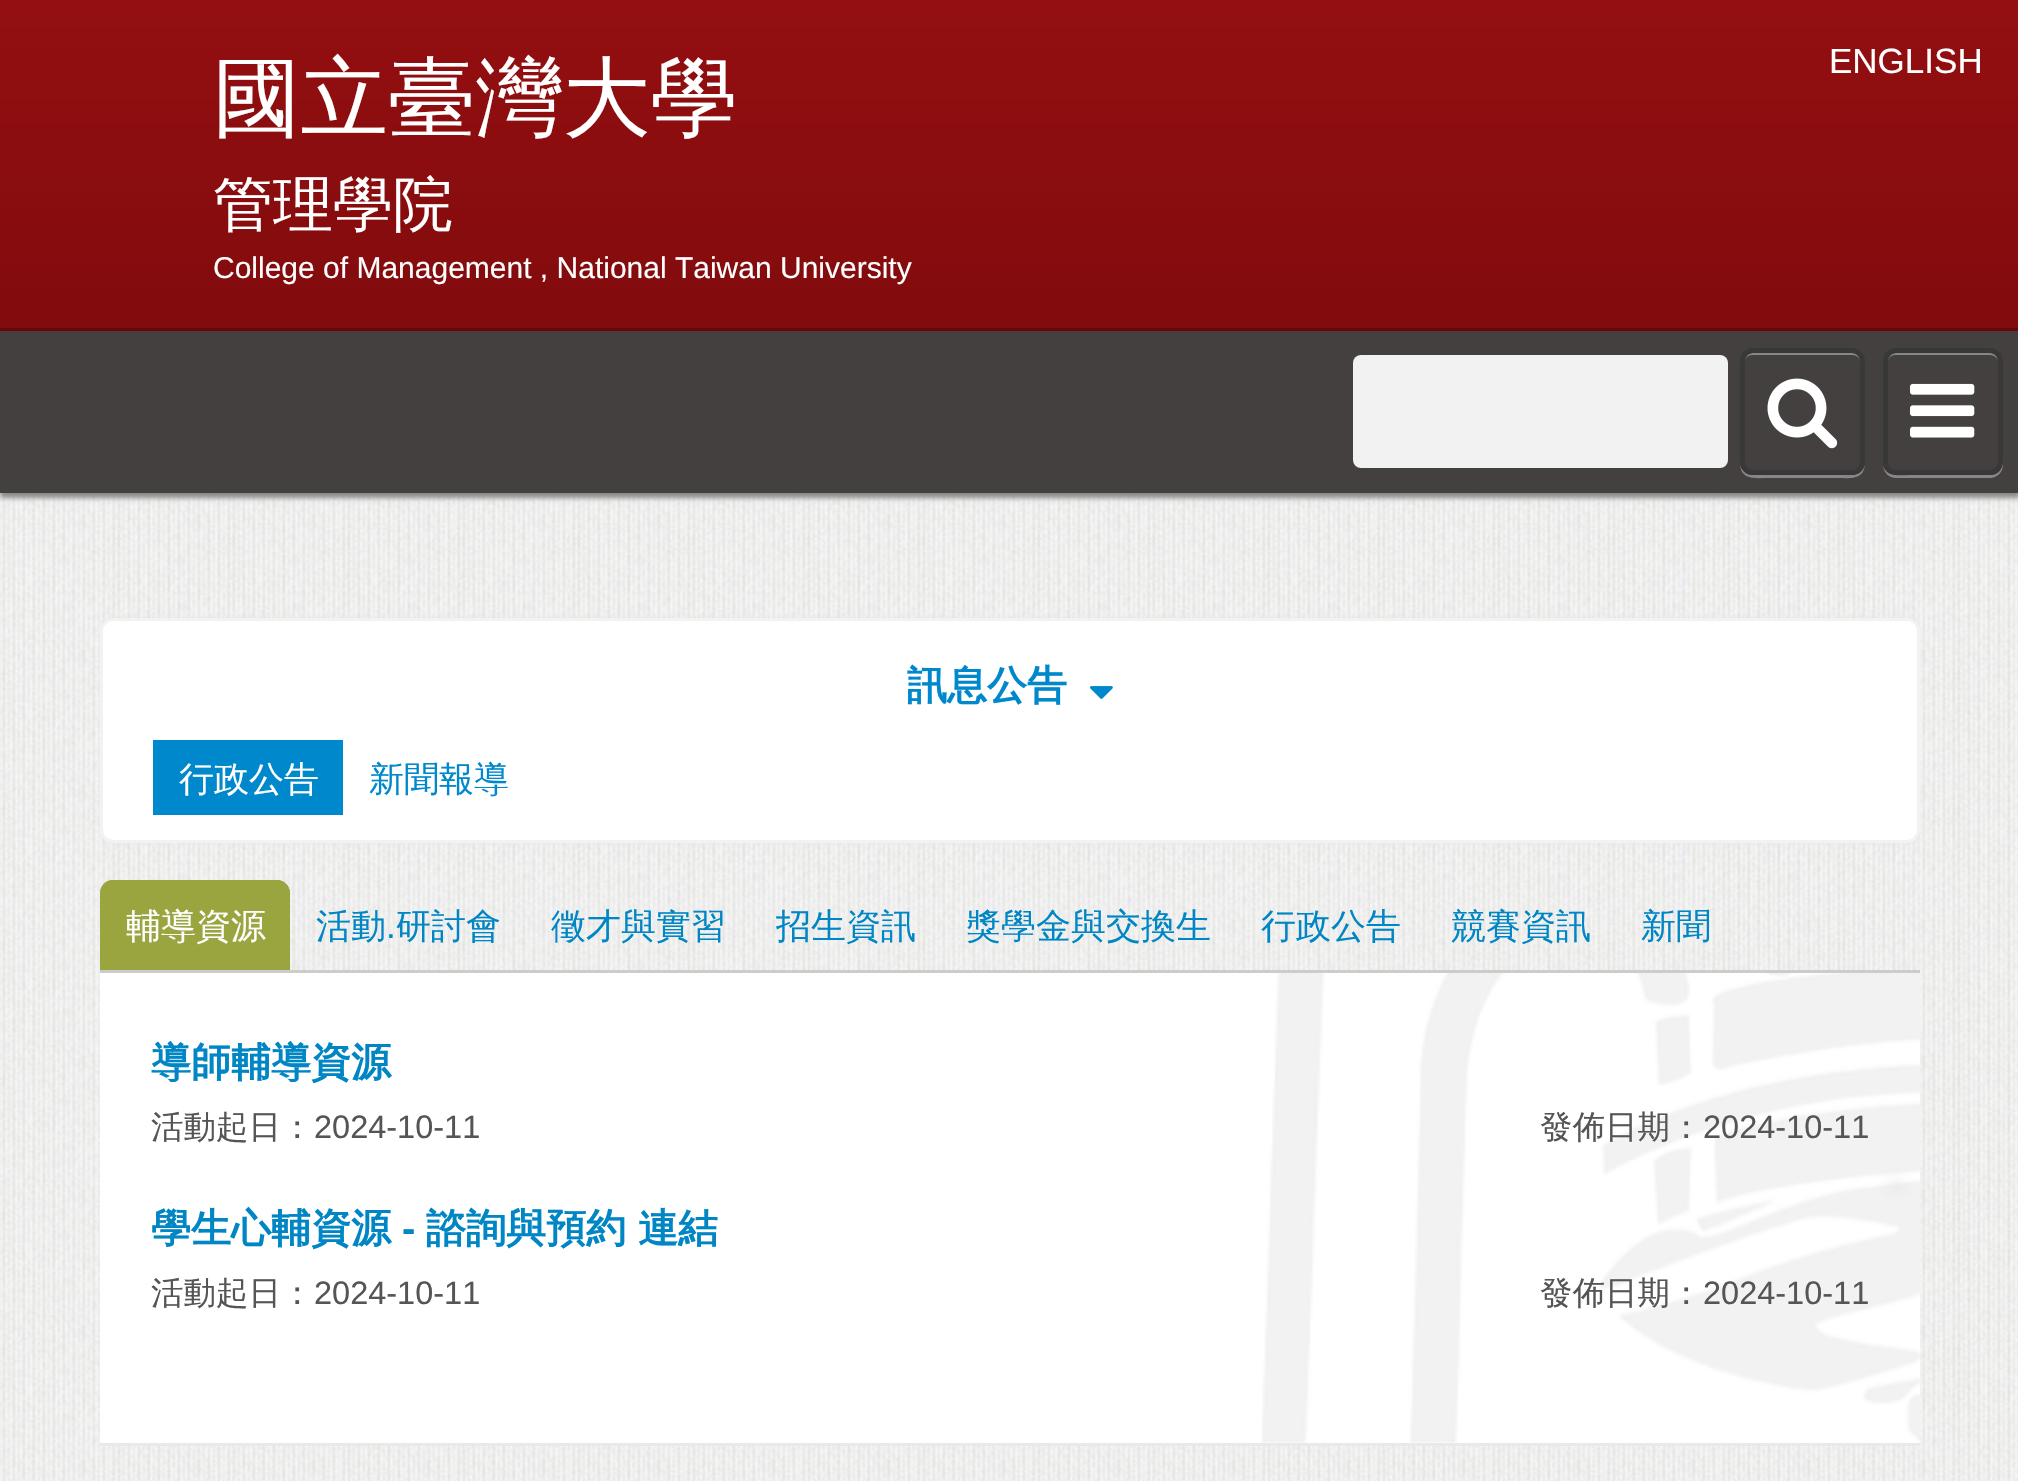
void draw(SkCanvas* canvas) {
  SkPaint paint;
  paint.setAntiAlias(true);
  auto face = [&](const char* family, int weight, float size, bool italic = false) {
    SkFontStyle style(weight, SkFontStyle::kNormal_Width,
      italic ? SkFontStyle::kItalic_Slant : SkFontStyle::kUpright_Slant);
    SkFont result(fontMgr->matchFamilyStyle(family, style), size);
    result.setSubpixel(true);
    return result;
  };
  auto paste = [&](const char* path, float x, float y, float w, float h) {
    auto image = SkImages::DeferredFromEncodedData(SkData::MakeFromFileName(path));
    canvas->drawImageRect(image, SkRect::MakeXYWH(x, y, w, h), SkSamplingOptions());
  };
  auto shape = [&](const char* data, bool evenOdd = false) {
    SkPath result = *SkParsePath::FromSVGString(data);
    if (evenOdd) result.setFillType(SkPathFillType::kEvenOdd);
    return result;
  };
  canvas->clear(0xffffffff);
  paste("img/1.png", 0, 493, 2018, 988);
  {
    const SkColor colors[] = {0xff940f11, 0xff820b0d};
    const float stops[] = {0, 1};
    const SkPoint ends[] = {{1010, 0}, {1010, 328}};
    paint.setShader(SkGradientShader::MakeLinear(ends, colors, stops, 2, SkTileMode::kClamp));
    paint.setAlpha(255);
  }
  canvas->drawRect(SkRect::MakeXYWH(0, 0, 2018, 328), paint);
  paint.setShader(nullptr);
  paint.setColor(0xff888888);
  paint.setMaskFilter(SkMaskFilter::MakeBlur(kNormal_SkBlurStyle, 2.5f));
  canvas->drawRect(SkRect::MakeXYWH(0, 333, 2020, 165), paint);
  paint.setMaskFilter(nullptr);
  paint.setColor(0xff444040);
  canvas->drawRect(SkRect::MakeXYWH(0, 331, 2018, 162), paint);
  paint.setColor(0xff6a0709);
  canvas->drawRect(SkRect::MakeXYWH(0, 328, 2018, 3), paint);
  paint.setColor(0xfff2f2f2);
  canvas->drawRoundRect(SkRect::MakeXYWH(1353, 355, 375, 113), 8, 8, paint);
  paint.setColor(0xff878787);
  canvas->drawPath(shape("M1740 462C1740 481 1755 478 1770 478H1836C1850 478 1865 481 1865 462C1865 469 1859 475 1852 475H1752C1746 475 1740 469 1740 462Z"), paint);
  paint.setColor(0xff444040);
  canvas->drawRoundRect(SkRect::MakeXYWH(1740, 348, 125, 127), 13, 13, paint);
  paint.setColor(0xff878787);
  canvas->drawPath(shape("M1752 355H1852C1857 355 1860 358 1860 362C1860 349 1844 353 1836 353H1770C1761 353 1745 349 1745 362C1745 358 1748 355 1752 355Z"), paint);
  paint.setStroke(true);
  paint.setStrokeWidth(5);
  paint.setColor(0xff383838);
  canvas->drawRoundRect(SkRect::MakeXYWH(1742.5f, 350.5f, 120, 122), 10.5f, 10.5f, paint);
  paste("img/2.png", 1767, 378, 71, 71);
  paint.setStroke(false);
  paint.setColor(0xff878787);
  canvas->drawPath(shape("M1883 466C1884 473 1889 478 1896 478H1990C1997 478 2003 472 2003 465V363L2002 359V445C2002 455 2006 472 1993 475H1911C1902 475 1887 478 1883 466Z"), paint);
  canvas->drawPath(shape("M1895 355H1990C1994 355 1998 358 1998 362C1998 349 1982 353 1974 353H1912C1904 353 1888 349 1888 362C1888 358 1891 355 1895 355Z"), paint);
  paint.setStroke(true);
  paint.setColor(0xff383838);
  canvas->drawRoundRect(SkRect::MakeXYWH(1885.5f, 350.5f, 115, 122), 10.5f, 10.5f, paint);
  paste("img/3.png", 1910, 383, 65, 55);
  canvas->save();
  canvas->clipRect(SkRect::MakeXYWH(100, 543, 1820, 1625));
  paint.setStroke(false);
  paint.setColor(0xffe8e8e8);
  paint.setMaskFilter(SkMaskFilter::MakeBlur(kNormal_SkBlurStyle, 2.5f));
  canvas->drawRoundRect(SkRect::MakeXYWH(100, 618, 1820, 225), 13, 13, paint);
  paint.setMaskFilter(nullptr);
  canvas->restore();
  paint.setColor(0xffffffff);
  canvas->drawRoundRect(SkRect::MakeXYWH(101.5f, 619.5f, 1817, 222), 11.5f, 11.5f, paint);
  paint.setStroke(true);
  paint.setStrokeWidth(3);
  paint.setColor(0xfff2f2f2);
  canvas->drawRoundRect(SkRect::MakeXYWH(101.5f, 619.5f, 1817, 222), 11.5f, 11.5f, paint);
  paste("img/4.png", 1090, 686, 23, 13);
  paint.setStroke(false);
  paint.setColor(0xff0088cc);
  canvas->drawRect(SkRect::MakeXYWH(153, 740, 190, 75), paint);
  paint.setColor(0xff9aa540);
  canvas->drawPath(shape("M113 880H277C284 880 290 886 290 893V970H100V893C100 886 106 880 113 880Z"), paint);
  canvas->drawPath(shape("M112 882C106 882 100 888 100 895V893C100 886 106 880 113 880H277C284 880 290 886 290 893V895C290 888 284 882 278 882Z"), paint);
  paint.setColor(0xffffffff);
  canvas->drawRect(SkRect::MakeXYWH(100, 973, 1820, 470), paint);
  paint.setColor(0xffe9e9e9);
  canvas->drawRect(SkRect::MakeXYWH(100, 1443, 1820, 3), paint);
  paste("img/5.png", 1261, 973, 659, 470);
  paint.setColor(0xffcccccc);
  canvas->drawRect(SkRect::MakeXYWH(100, 970, 1820, 3), paint);
  auto f0 = face("WenQuanYi Zen Hei", 500, 87.5f);
  paint.setColor(0xffffffff);
  canvas->drawString("國立臺灣大學", 213, 128, f0, paint);
  auto f1 = face("WenQuanYi Zen Hei", 500, 60);
  canvas->drawString("管理學院", 213, 225, f1, paint);
  auto f2 = face("Liberation Sans", 400, 30);
  canvas->drawString("College of Management , National Taiwan University", 213, 278, f2, paint);
  auto f3 = face("Liberation Sans", 400, 35);
  canvas->drawString("ENGLISH", 1829, 73, f3, paint);
  auto f4 = face("WenQuanYi Zen Hei", 700, 40);
  paint.setColor(0xff0088cc);
  canvas->drawString("訊息公告", 907, 699, f4, paint);
  auto f5 = face("WenQuanYi Zen Hei", 500, 35);
  paint.setColor(0xffffffff);
  canvas->drawString("行政公告", 179, 791, f5, paint);
  paint.setColor(0xff0088cc);
  canvas->drawString("新聞報導", 369, 791, f5, paint);
  paint.setColor(0xffffffff);
  canvas->drawString("輔導資源", 126, 938, f5, paint);
  paint.setColor(0xff0086c4);
  canvas->drawString("活動", 316, 938, f5, paint);
  canvas->drawString(".", 386, 938, f3, paint);
  {
    const struct { const char* s; float x, y; } items[] = {
      {"研討會", 396, 938},
      {"徵才與實習", 551, 938},
      {"招生資訊", 776, 938},
      {"獎學金與交換生", 966, 938},
      {"行政公告", 1261, 938},
      {"競賽資訊", 1451, 938},
      {"新聞", 1641, 938},
    };
    for (auto [s, x, y] : items) {
      canvas->drawString(s, x, y, f5, paint);
    }
  }
  canvas->drawString("導師輔導資源", 151, 1076, f4, paint);
  auto f6 = face("WenQuanYi Zen Hei", 500, 32.5f);
  paint.setColor(0xff555555);
  canvas->drawString("活動起日：", 151, 1138, f6, paint);
  auto f7 = face("Liberation Sans", 400, 32.5f);
  canvas->drawString("2024-10-11", 314, 1138, f7, paint);
  canvas->drawString("發佈日期：", 1540, 1138, f6, paint);
  canvas->drawString("2024-10-11", 1703, 1138, f7, paint);
  paint.setColor(0xff0086c4);
  canvas->drawString("學生心輔資源", 151, 1242, f4, paint);
  auto f8 = face("Liberation Sans", 700, 40);
  canvas->drawString("-", 402, 1242, f8, paint);
  canvas->drawString("諮詢與預約 連結", 426, 1242, f4, paint);
  paint.setColor(0xff555555);
  canvas->drawString("活動起日：", 151, 1304, f6, paint);
  canvas->drawString("2024-10-11", 314, 1304, f7, paint);
  canvas->drawString("發佈日期：", 1540, 1304, f6, paint);
  canvas->drawString("2024-10-11", 1703, 1304, f7, paint);
}
